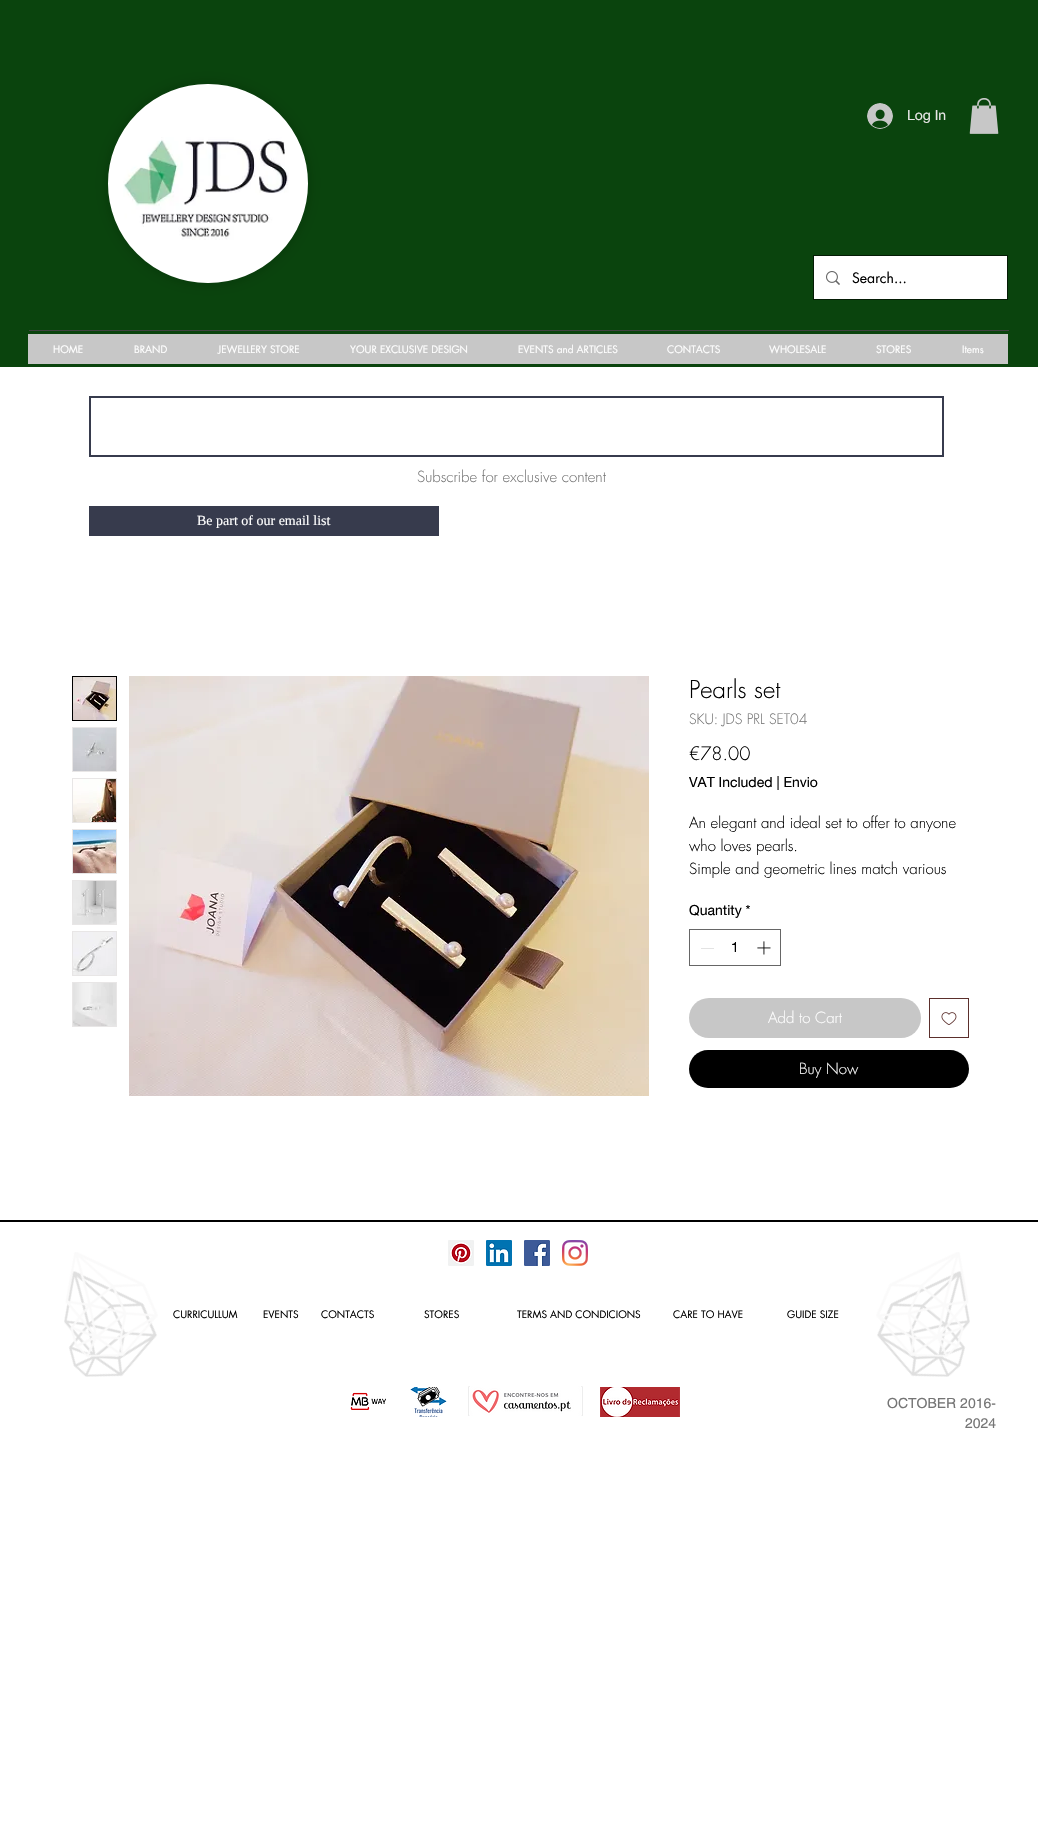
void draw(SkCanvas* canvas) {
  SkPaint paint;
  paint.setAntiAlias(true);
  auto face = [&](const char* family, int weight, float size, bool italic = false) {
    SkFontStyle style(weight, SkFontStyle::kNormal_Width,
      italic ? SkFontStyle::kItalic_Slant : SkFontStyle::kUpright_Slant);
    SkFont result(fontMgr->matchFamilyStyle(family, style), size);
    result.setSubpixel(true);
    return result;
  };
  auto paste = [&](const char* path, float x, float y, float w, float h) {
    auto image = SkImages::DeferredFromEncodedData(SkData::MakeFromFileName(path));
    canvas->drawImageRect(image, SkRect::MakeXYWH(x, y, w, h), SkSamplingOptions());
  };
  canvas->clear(0xffffffff);
  paint.setColor(0xff0a440d);
  canvas->drawRect(SkRect::MakeXYWH(0, 0, 1038, 367), paint);
  paint.setColor(0x33000000);
  paint.setMaskFilter(SkMaskFilter::MakeBlur(kNormal_SkBlurStyle, 7));
  canvas->drawRoundRect(SkRect::MakeXYWH(108, 84, 200, 199), 99.5f, 99.5f, paint);
  paint.setMaskFilter(nullptr);
  paint.setColor(0xffffffff);
  canvas->drawRoundRect(SkRect::MakeXYWH(111, 87, 194, 193), 96.5f, 96.5f, paint);
  paint.setStroke(true);
  paint.setStrokeWidth(6);
  canvas->drawRoundRect(SkRect::MakeXYWH(111, 87, 194, 193), 96.5f, 96.5f, paint);
  paste("img/1.png", 123, 137, 166, 103);
  paste("img/2.png", 867, 103, 26, 26);
  paste("img/3.png", 969, 98, 30, 36);
  paint.setStrokeWidth(1);
  paint.setColor(0xff041b05);
  canvas->drawRect(SkRect::MakeXYWH(813.5f, 255.5f, 194, 44), paint);
  paint.setStroke(false);
  paint.setColor(0xffffffff);
  canvas->drawRect(SkRect::MakeXYWH(814, 256, 193, 43), paint);
  paste("img/4.png", 826, 271, 14, 14);
  paint.setColor(0xff424242);
  canvas->drawRect(SkRect::MakeXYWH(29, 330, 980, 1), paint);
  paint.setColor(0xffc7c7c7);
  canvas->drawRect(SkRect::MakeXYWH(28, 334, 980, 30), paint);
  paint.setStroke(true);
  paint.setStrokeWidth(2);
  paint.setColor(0xff373b4d);
  canvas->drawRect(SkRect::MakeXYWH(90, 397, 853, 59), paint);
  paint.setStroke(false);
  canvas->drawRect(SkRect::MakeXYWH(89, 506, 350, 30), paint);
  paint.setStroke(true);
  paint.setStrokeWidth(1);
  paint.setColor(0xff000000);
  canvas->drawRect(SkRect::MakeXYWH(72.5f, 676.5f, 44, 44), paint);
  paste("img/5.png", 73, 677, 43, 43);
  paint.setColor(0xffe8e6e6);
  canvas->drawRect(SkRect::MakeXYWH(72.5f, 727.5f, 44, 44), paint);
  paste("img/6.png", 73, 728, 43, 43);
  canvas->drawRect(SkRect::MakeXYWH(72.5f, 778.5f, 44, 44), paint);
  paste("img/7.png", 73, 779, 43, 43);
  canvas->drawRect(SkRect::MakeXYWH(72.5f, 829.5f, 44, 44), paint);
  paste("img/8.png", 73, 830, 43, 43);
  canvas->drawRect(SkRect::MakeXYWH(72.5f, 880.5f, 44, 44), paint);
  paste("img/9.png", 73, 881, 43, 43);
  canvas->drawRect(SkRect::MakeXYWH(72.5f, 931.5f, 44, 44), paint);
  paste("img/10.png", 73, 932, 43, 43);
  canvas->drawRect(SkRect::MakeXYWH(72.5f, 982.5f, 44, 44), paint);
  paste("img/11.png", 73, 983, 43, 43);
  paste("img/12.png", 129, 676, 520, 420);
  paint.setColor(0xff666666);
  canvas->drawRect(SkRect::MakeXYWH(689.5f, 929.5f, 91, 36), paint);
  paint.setStroke(false);
  paint.setColor(0xffe3e3e3);
  canvas->drawRect(SkRect::MakeXYWH(701, 948, 13, 1), paint);
  paste("img/13.png", 757, 941, 14, 14);
  paint.setColor(0xffc7c7c7);
  canvas->drawRoundRect(SkRect::MakeXYWH(689, 998, 232, 40), 20, 20, paint);
  paint.setStroke(true);
  paint.setColor(0xff5b2f2c);
  canvas->drawRect(SkRect::MakeXYWH(929.5f, 998.5f, 39, 39), paint);
  paste("img/14.png", 941, 1012, 16, 13);
  paint.setStroke(false);
  paint.setColor(0xff000000);
  canvas->drawRoundRect(SkRect::MakeXYWH(689, 1050, 280, 38), 19, 19, paint);
  canvas->drawRect(SkRect::MakeXYWH(0, 1220, 1038, 2), paint);
  paste("img/15.png", 64, 1252, 94, 125);
  paste("img/16.png", 448, 1240, 26, 26);
  paste("img/17.png", 486, 1240, 26, 26);
  paste("img/18.png", 524, 1240, 26, 26);
  paste("img/19.png", 562, 1240, 26, 26);
  paste("img/20.png", 876, 1252, 94, 125);
  paste("img/21.png", 350, 1392, 36, 18);
  paste("img/22.png", 410, 1387, 37, 30);
  paste("img/23.png", 468, 1386, 115, 30);
  paste("img/24.png", 600, 1387, 80, 30);
  auto f0 = face("helvetica neue", 400, 14);
  paint.setColor(0xffe8e6e6);
  canvas->drawString("Log In", 907, 120, f0, paint);
  auto f1 = face("futura", 400, 14);
  paint.setColor(0xff000000);
  canvas->drawString("Search...", 852, 283, f1, paint);
  auto f2 = face("futura", 400, 10);
  paint.setColor(0xffffffff);
  {
    const struct { const char* s; float x, y; } items[] = {
      {"HOME", 53, 353},
      {"BRAND", 134, 353},
      {"JEWELLERY STORE", 218, 353},
      {"YOUR EXCLUSIVE DESIGN", 350, 353},
      {"EVENTS and ARTICLES", 518, 353},
      {"CONTACTS", 667, 353},
      {"WHOLESALE", 769, 353},
      {"STORES", 876, 353},
      {"Items", 962, 353},
    };
    for (auto [s, x, y] : items) {
      canvas->drawString(s, x, y, f2, paint);
    }
  }
  auto f3 = face("futura", 300, 15);
  paint.setColor(0xff757575);
  canvas->drawString("Subscribe for exclusive content", 417, 482, f3, paint);
  auto f4 = face("Liberation Serif", 400, 14);
  paint.setColor(0xffffffff);
  canvas->drawString("Be part of our email list", 197, 525, f4, paint);
  auto f5 = face("futura", 300, 24);
  paint.setColor(0xff000000);
  canvas->drawString("Pearls set", 689, 698, f5, paint);
  auto f6 = face("futura", 300, 14);
  paint.setColor(0xff757575);
  canvas->drawString("SKU: JDS PRL SET04", 689, 724, f6, paint);
  auto f7 = face("futura", 300, 18);
  paint.setColor(0xff000000);
  canvas->drawString("€78.00", 689, 760, f7, paint);
  canvas->drawString("VAT Included | Envio", 689, 787, f0, paint);
  {
    const struct { const char* s; float x, y; } items[] = {
      {"An elegant and ideal set to offer to anyone", 689, 828},
      {"who loves pearls.", 689, 851},
      {"Simple and geometric lines match various", 689, 874},
    };
    for (auto [s, x, y] : items) {
      canvas->drawString(s, x, y, f3, paint);
    }
  }
  canvas->drawString("Quantity *", 689, 915, f0, paint);
  canvas->drawString("1", 731, 952, f0, paint);
  paint.setColor(0xffffffff);
  canvas->drawString("Add to Cart", 768, 1023, f3, paint);
  canvas->drawString("Buy Now", 799, 1074, f3, paint);
  paint.setColor(0xff000000);
  {
    const struct { const char* s; float x, y; } items[] = {
      {"CURRICULLUM", 173, 1318},
      {"EVENTS", 263, 1318},
      {"CONTACTS", 321, 1318},
      {"STORES", 424, 1318},
      {"TERMS AND CONDICIONS", 517, 1318},
      {"CARE TO HAVE", 673, 1318},
      {"GUIDE SIZE", 787, 1318},
    };
    for (auto [s, x, y] : items) {
      canvas->drawString(s, x, y, f2, paint);
    }
  }
  auto f8 = face("helvetica", 400, 14);
  paint.setColor(0xff757575);
  canvas->drawString("OCTOBER 2016-", 887, 1408, f8, paint);
  canvas->drawString("2024", 965, 1428, f8, paint);
}
